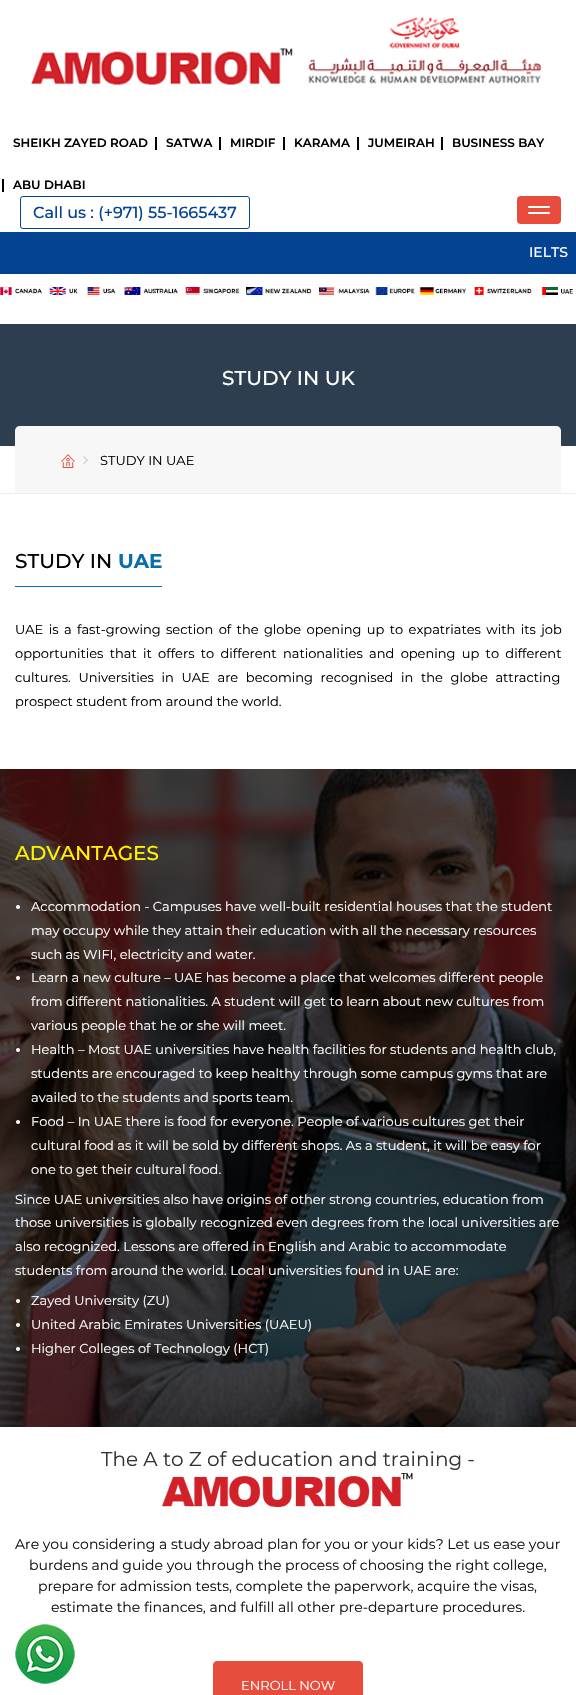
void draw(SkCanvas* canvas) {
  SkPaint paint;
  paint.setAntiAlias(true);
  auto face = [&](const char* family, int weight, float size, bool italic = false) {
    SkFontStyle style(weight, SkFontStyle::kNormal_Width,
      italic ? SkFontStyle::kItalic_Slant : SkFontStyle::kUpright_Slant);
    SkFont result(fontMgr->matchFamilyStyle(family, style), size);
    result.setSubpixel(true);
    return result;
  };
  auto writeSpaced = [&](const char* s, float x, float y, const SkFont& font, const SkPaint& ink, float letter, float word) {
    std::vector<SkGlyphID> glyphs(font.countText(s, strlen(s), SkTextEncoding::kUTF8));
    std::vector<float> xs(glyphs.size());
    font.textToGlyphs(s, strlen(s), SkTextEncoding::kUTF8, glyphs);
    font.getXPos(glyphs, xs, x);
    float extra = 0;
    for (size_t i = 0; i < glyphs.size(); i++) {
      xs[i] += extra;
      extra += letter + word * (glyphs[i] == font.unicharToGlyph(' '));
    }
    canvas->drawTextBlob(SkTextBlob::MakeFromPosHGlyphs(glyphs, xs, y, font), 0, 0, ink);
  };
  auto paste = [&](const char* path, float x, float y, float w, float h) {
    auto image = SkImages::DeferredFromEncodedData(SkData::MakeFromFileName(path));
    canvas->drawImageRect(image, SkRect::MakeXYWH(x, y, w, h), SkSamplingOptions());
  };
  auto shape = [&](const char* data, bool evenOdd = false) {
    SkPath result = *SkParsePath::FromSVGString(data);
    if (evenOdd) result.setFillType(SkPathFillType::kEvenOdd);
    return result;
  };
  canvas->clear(0xffffffff);
  paste("img/1.png", 31, 17, 510, 68);
  {
    const struct { float x, y, w, h; SkColor color; } items[] = {
      {155, 137, 2, 13, 0xff000000},
      {219, 137, 2, 13, 0xff000000},
      {283, 137, 2, 13, 0xff000000},
      {357, 137, 2, 13, 0xff000000},
      {441, 137, 2, 13, 0xff000000},
      {2, 179, 2, 13, 0xff000000},
    };
    for (auto [x, y, w, h, color] : items) {
      paint.setColor(color);
      canvas->drawRect(SkRect::MakeXYWH(x, y, w, h), paint);
    }
  }
  paint.setStroke(true);
  paint.setStrokeWidth(1);
  paint.setColor(0xff034392);
  canvas->drawRoundRect(SkRect::MakeXYWH(20.5f, 196.5f, 229, 32), 2.5f, 2.5f, paint);
  paint.setStroke(false);
  paint.setColor(0xffe84c3d);
  canvas->drawRoundRect(SkRect::MakeXYWH(517, 196, 44, 28), 4, 4, paint);
  paint.setColor(0xffffffff);
  canvas->drawRoundRect(SkRect::MakeXYWH(528, 206, 22, 2), 1, 1, paint);
  canvas->drawRoundRect(SkRect::MakeXYWH(528, 212, 22, 2), 1, 1, paint);
  paint.setColor(0xff034392);
  canvas->drawRect(SkRect::MakeXYWH(0, 232, 576, 42), paint);
  paste("img/2.png", 0, 287, 573, 8);
  paint.setColor(0xff2d3e50);
  canvas->drawRect(SkRect::MakeXYWH(0, 324, 576, 122), paint);
  paint.setColor(0xffeeeeee);
  canvas->drawRect(SkRect::MakeXYWH(0, 493, 576, 1), paint);
  paint.setColor(0xfff7f7f7);
  canvas->drawPath(shape("M20 426H556C559 426 561 428 561 431V493H15V431C15 428 17 426 20 426Z"), paint);
  paste("img/3.png", 61, 454, 14, 14);
  paste("img/4.png", 83, 456, 5, 9);
  paint.setColor(0xff0a6dae);
  canvas->drawRect(SkRect::MakeXYWH(15, 586, 147, 1), paint);
  paste("img/5.png", 0, 769, 576, 658);
  paint.setColor(0xffffffff);
  canvas->drawCircle(18, 907, 2, paint);
  canvas->drawCircle(18, 978, 2, paint);
  canvas->drawCircle(18, 1050, 2, paint);
  canvas->drawCircle(18, 1122, 2, paint);
  canvas->drawCircle(18, 1301, 2, paint);
  canvas->drawCircle(18, 1325, 2, paint);
  canvas->drawCircle(18, 1349, 2, paint);
  paste("img/6.png", 159, 1472, 254, 37);
  paint.setColor(0xffe84c3d);
  canvas->drawRoundRect(SkRect::MakeXYWH(213.5f, 1661.5f, 149, 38), 3.5f, 3.5f, paint);
  paint.setStroke(true);
  canvas->drawRoundRect(SkRect::MakeXYWH(213.5f, 1661.5f, 149, 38), 3.5f, 3.5f, paint);
  paste("img/7.png", 15, 1624, 60, 60);
  auto f0 = face("Montserrat", 600, 12);
  paint.setStroke(false);
  paint.setColor(0xff000000);
  {
    const struct { const char* s; float x, y; } items[] = {
      {"SHEIKH ZAYED ROAD", 13, 147},
      {"SATWA", 166, 147},
      {"MIRDIF", 230, 147},
      {"KARAMA", 294, 147},
      {"JUMEIRAH", 368, 147},
      {"BUSINESS BAY", 452, 147},
      {"ABU DHABI", 13, 189},
    };
    for (auto [s, x, y] : items) {
      canvas->drawString(s, x, y, f0, paint);
    }
  }
  auto f1 = face("Montserrat", 500, 16);
  paint.setColor(0xff034392);
  canvas->drawString("Call us : (+971) 55-1665437", 33, 218, f1, paint);
  auto f2 = face("Montserrat", 500, 14);
  paint.setColor(0xffffffff);
  canvas->drawString("IELTS", 529, 257, f2, paint);
  auto f3 = face("Montserrat", 500, 20);
  canvas->drawString("STUDY IN UK", 222, 385, f3, paint);
  auto f4 = face("Montserrat", 400, 13);
  paint.setColor(0xff000000);
  canvas->drawString("STUDY IN UAE", 100, 465, f4, paint);
  canvas->drawString("STUDY IN", 15, 568, f3, paint);
  auto f5 = face("Montserrat", 700, 20);
  paint.setColor(0xff0a6dae);
  canvas->drawString("UAE", 118, 568, f5, paint);
  paint.setColor(0xff000000);
  writeSpaced("UAE is a fast-growing section of the globe opening up to expatriates with its job", 15, 634, f4, paint, 0, 2);
  writeSpaced("opportunities that it offers to different nationalities and opening up to different", 15, 658, f4, paint, 0, 2.9f);
  writeSpaced("cultures. Universities in UAE are becoming recognised in the globe attracting", 15, 682, f4, paint, 0, 4.25f);
  canvas->drawString("prospect student from around the world.", 15, 706, f4, paint);
  paint.setColor(0xfffff200);
  canvas->drawString("ADVANTAGES", 15, 860, f3, paint);
  paint.setColor(0xffffffff);
  {
    const struct { const char* s; float x, y; } items[] = {
      {"Accommodation - Campuses have well-built residential houses that the student", 31, 911},
      {"may occupy while they attain their education with all the necessary resources", 31, 935},
      {"such as WIFI, electricity and water.", 31, 959},
      {"Learn a new culture – UAE has become a place that welcomes different people", 31, 982},
      {"from different nationalities. A student will get to learn about new cultures from", 31, 1006},
      {"various people that he or she will meet.", 31, 1030},
      {"Health – Most UAE universities have health facilities for students and health club,", 31, 1054},
      {"students are encouraged to keep healthy through some campus gyms that are", 31, 1078},
      {"availed to the students and sports team.", 31, 1102},
      {"Food – In UAE there is food for everyone. People of various cultures get their", 31, 1126},
      {"cultural food as it will be sold by different shops. As a student, it will be easy for", 31, 1150},
      {"one to get their cultural food.", 31, 1174},
      {"Since UAE universities also have origins of other strong countries, education from", 15, 1204},
      {"those universities is globally recognized even degrees from the local universities are", 15, 1227},
      {"also recognized. Lessons are offered in English and Arabic to accommodate", 15, 1251},
      {"students from around the world. Local universities found in UAE are:", 15, 1275},
      {"Zayed University (ZU)", 31, 1305},
      {"United Arabic Emirates Universities (UAEU)", 31, 1329},
      {"Higher Colleges of Technology (HCT)", 31, 1353},
    };
    for (auto [s, x, y] : items) {
      canvas->drawString(s, x, y, f4, paint);
    }
  }
  auto f6 = face("Montserrat", 400, 20);
  paint.setColor(0xff333333);
  canvas->drawString("The A to Z of education and training -", 101, 1466, f6, paint);
  auto f7 = face("Montserrat", 400, 14);
  paint.setColor(0xff111111);
  {
    const struct { const char* s; float x, y; } items[] = {
      {"Are you considering a study abroad plan for you or your kids? Let us ease your", 15, 1549},
      {"burdens and guide you through the process of choosing the right college,", 29, 1570},
      {"prepare for admission tests, complete the paperwork, acquire the visas,", 38, 1591},
      {"estimate the finances, and fulfill all other pre-departure procedures.", 51, 1612},
    };
    for (auto [s, x, y] : items) {
      canvas->drawString(s, x, y, f7, paint);
    }
  }
  paint.setColor(0xffffffff);
  canvas->drawString("ENROLL NOW", 241, 1690, f4, paint);
}
